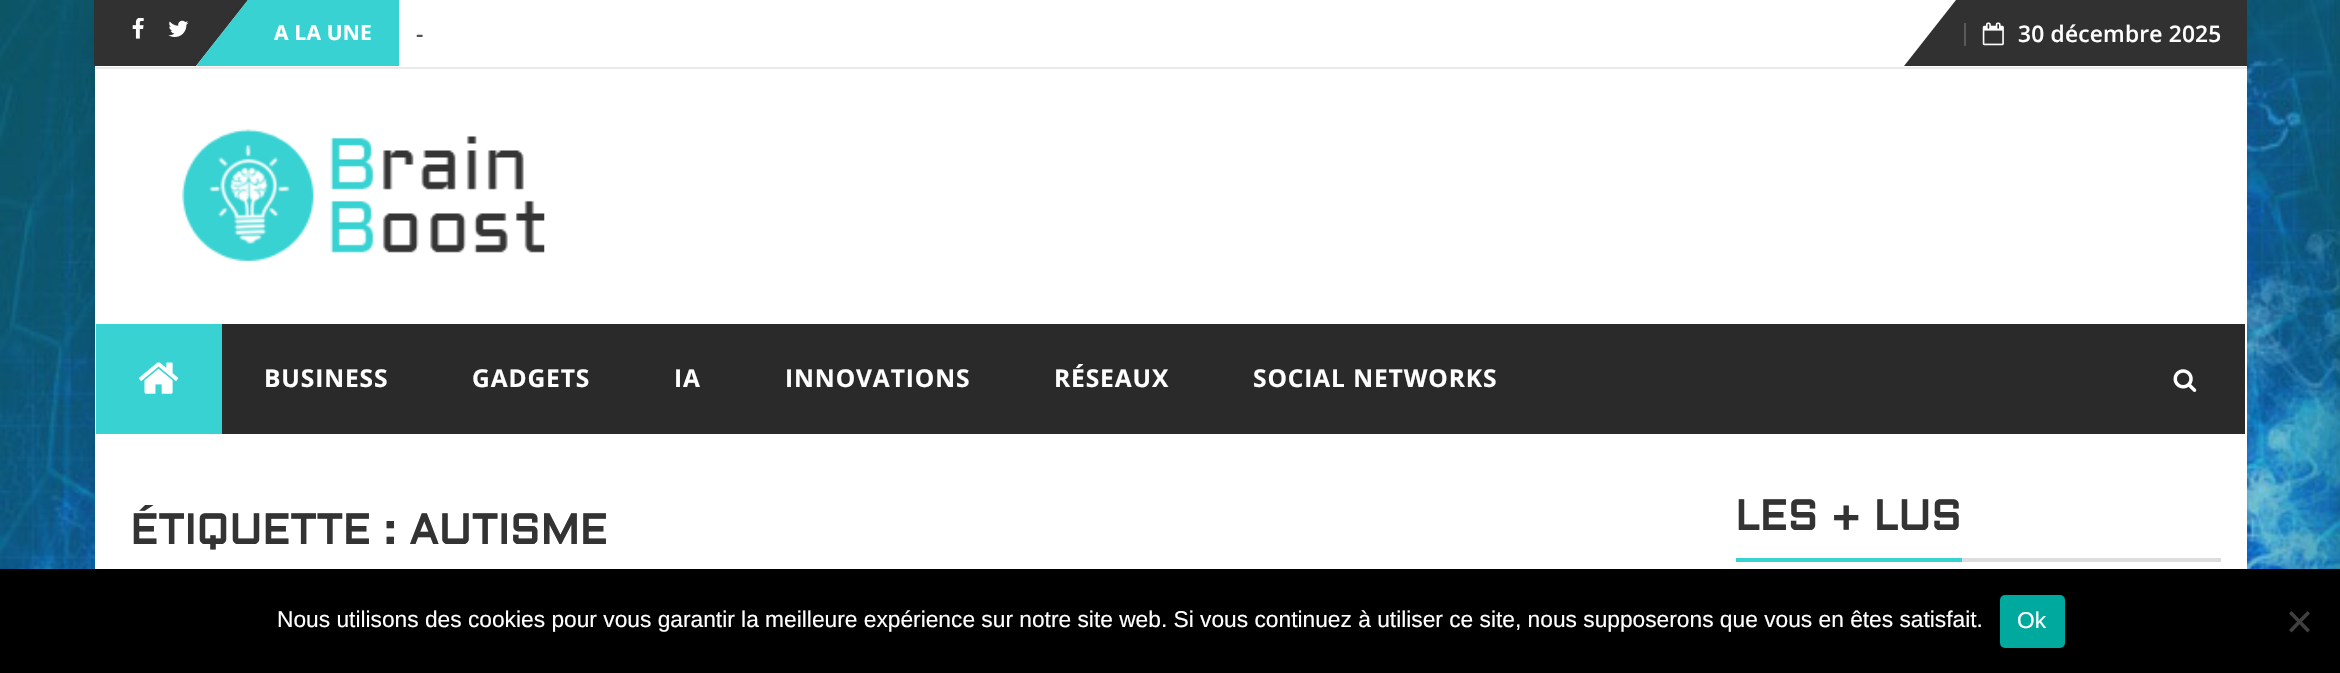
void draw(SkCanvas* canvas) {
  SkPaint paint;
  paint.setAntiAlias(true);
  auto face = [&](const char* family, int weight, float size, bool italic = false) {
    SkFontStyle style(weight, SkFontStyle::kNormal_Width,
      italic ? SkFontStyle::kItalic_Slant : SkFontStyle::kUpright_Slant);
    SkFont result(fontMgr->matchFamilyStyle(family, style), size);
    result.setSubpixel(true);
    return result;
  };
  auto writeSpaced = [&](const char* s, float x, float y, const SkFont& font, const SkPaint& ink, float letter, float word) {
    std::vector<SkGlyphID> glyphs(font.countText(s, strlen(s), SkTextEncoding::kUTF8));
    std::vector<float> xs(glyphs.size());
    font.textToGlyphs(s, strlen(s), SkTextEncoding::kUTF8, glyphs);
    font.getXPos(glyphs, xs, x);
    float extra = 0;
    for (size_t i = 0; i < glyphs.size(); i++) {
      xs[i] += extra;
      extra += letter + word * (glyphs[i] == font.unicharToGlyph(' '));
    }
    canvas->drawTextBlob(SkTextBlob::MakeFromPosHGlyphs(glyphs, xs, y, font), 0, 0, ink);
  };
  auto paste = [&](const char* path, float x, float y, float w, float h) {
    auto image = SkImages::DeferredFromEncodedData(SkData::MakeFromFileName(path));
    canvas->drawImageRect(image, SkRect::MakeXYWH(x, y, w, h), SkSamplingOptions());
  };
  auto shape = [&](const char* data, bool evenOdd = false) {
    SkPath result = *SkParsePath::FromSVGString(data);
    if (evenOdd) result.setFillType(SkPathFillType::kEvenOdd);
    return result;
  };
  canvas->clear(0xffffffff);
  paste("img/1.png", 0, 0, 2340, 569);
  paint.setColor(0x1a000000);
  paint.setMaskFilter(SkMaskFilter::MakeBlur(kNormal_SkBlurStyle, 13));
  canvas->drawRect(SkRect::MakeXYWH(95, 0, 2152, 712), paint);
  paint.setMaskFilter(nullptr);
  paint.setColor(0xffffffff);
  canvas->drawRect(SkRect::MakeXYWH(95, 0, 2152, 569), paint);
  paint.setColor(0xffeaeaea);
  canvas->drawRect(SkRect::MakeXYWH(95, 67, 2152, 2), paint);
  paint.setColor(0xff313131);
  canvas->drawPath(shape("M94 0H248L196 66H94Z"), paint);
  paste("img/2.png", 132, 18, 12, 21);
  paste("img/3.png", 168, 20, 21, 17);
  paint.setColor(0xff39d2d2);
  canvas->drawPath(shape("M399 66H196L248 0H399Z"), paint);
  paint.setColor(0xff313131);
  canvas->drawPath(shape("M2247 66H1904L1956 0H2247Z"), paint);
  paint.setColor(0xff595959);
  canvas->drawRect(SkRect::MakeXYWH(1964, 23, 2, 23), paint);
  paste("img/4.png", 1982, 22, 22, 24);
  paste("img/5.png", 182, 129, 363, 132);
  paint.setColor(0xff2a2a2a);
  canvas->drawRect(SkRect::MakeXYWH(222, 324, 2023, 110), paint);
  paint.setColor(0xff39d2d2);
  canvas->drawRect(SkRect::MakeXYWH(96, 324, 126, 110), paint);
  paste("img/6.png", 138, 362, 41, 32);
  paste("img/7.png", 2173, 369, 24, 23);
  {
    const struct { float x, y, w, h; SkColor color; } items[] = {
      {1736, 558, 226, 4, 0xff39d2d2},
      {1962, 558, 259, 4, 0xffdddddd},
      {0, 569, 2340, 104, 0xff000000},
    };
    for (auto [x, y, w, h, color] : items) {
      paint.setColor(color);
      canvas->drawRect(SkRect::MakeXYWH(x, y, w, h), paint);
    }
  }
  paint.setColor(0xff00a99d);
  canvas->drawRoundRect(SkRect::MakeXYWH(2000, 595, 65, 53), 5, 5, paint);
  paint.setColor(0xff404040);
  canvas->drawPath(shape("M2307.5 611L2310 613.5L2291.5 632.5L2289 630Z"), paint);
  canvas->drawPath(shape("M2289 613.5L2291.5 611L2310 630L2307.5 632.5Z"), paint);
  auto f0 = face("Open Sans", 700, 21);
  paint.setColor(0xffffffff);
  writeSpaced("A LA UNE", 274, 40, f0, paint, 0.2f, 0);
  auto f1 = face("Open Sans", 600, 22.75f);
  paint.setColor(0xff535353);
  writeSpaced("-", 416, 42, f1, paint, 0.2f, 0);
  paint.setColor(0xffffffff);
  writeSpaced("30 décembre 2025", 2018, 42, f1, paint, 0.2f, 0);
  auto f2 = face("Open Sans", 700, 24.5f);
  {
    const struct { const char* s; float x, y; } items[] = {
      {"BUSINESS", 264, 387},
      {"GADGETS", 472, 387},
      {"IA", 674, 387},
      {"INNOVATIONS", 785, 387},
      {"RÉSEAUX", 1054, 387},
      {"SOCIAL NETWORKS", 1253, 387},
    };
    for (auto [s, x, y] : items) {
      writeSpaced(s, x, y, f2, paint, 0.9f, 0);
    }
  }
  auto f3 = face("Aldrich", 700, 42);
  paint.setColor(0xff333333);
  writeSpaced("ÉTIQUETTE : AUTISME", 130, 544, f3, paint, 0.2f, 0);
  writeSpaced("LES + LUS", 1735, 530, f3, paint, 0.2f, 0);
  auto f4 = face("Liberation Sans", 400, 22.75f);
  paint.setColor(0xffffffff);
  canvas->drawString("Nous utilisons des cookies pour vous garantir la meilleure expérience sur notre site web. Si vous continuez à utiliser ce site, nous supposerons que vous en êtes satisfait.", 277, 627, f4, paint);
  canvas->drawString("Ok", 2017, 628, f4, paint);
}
